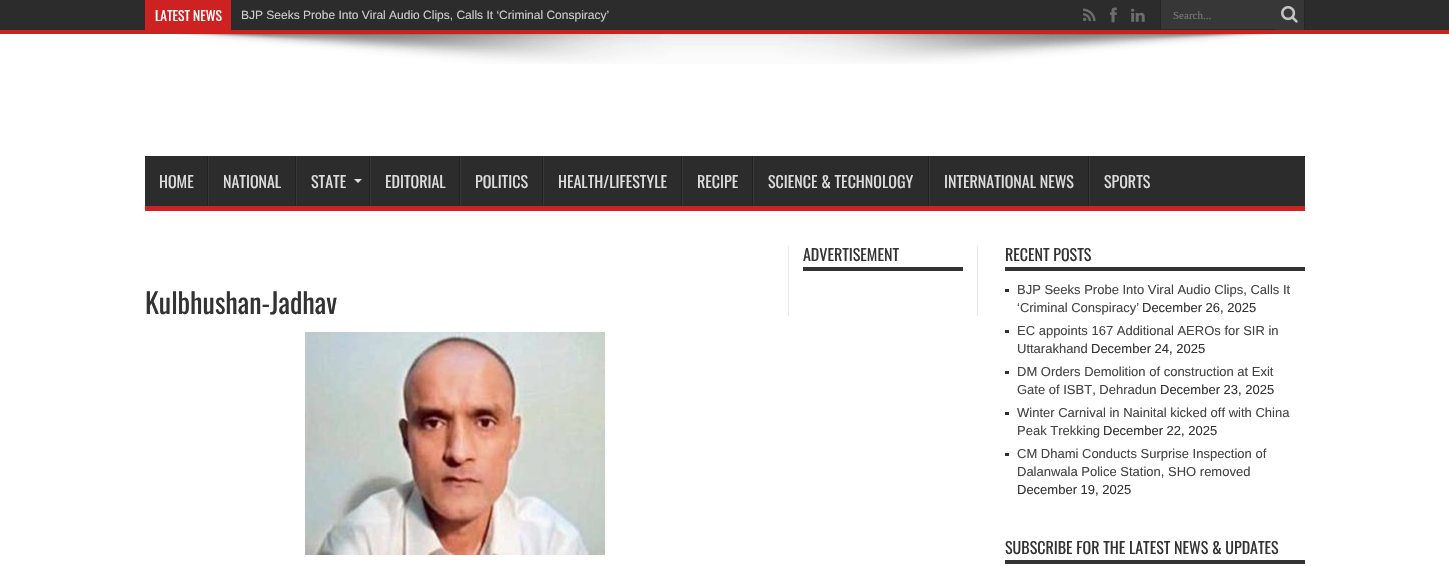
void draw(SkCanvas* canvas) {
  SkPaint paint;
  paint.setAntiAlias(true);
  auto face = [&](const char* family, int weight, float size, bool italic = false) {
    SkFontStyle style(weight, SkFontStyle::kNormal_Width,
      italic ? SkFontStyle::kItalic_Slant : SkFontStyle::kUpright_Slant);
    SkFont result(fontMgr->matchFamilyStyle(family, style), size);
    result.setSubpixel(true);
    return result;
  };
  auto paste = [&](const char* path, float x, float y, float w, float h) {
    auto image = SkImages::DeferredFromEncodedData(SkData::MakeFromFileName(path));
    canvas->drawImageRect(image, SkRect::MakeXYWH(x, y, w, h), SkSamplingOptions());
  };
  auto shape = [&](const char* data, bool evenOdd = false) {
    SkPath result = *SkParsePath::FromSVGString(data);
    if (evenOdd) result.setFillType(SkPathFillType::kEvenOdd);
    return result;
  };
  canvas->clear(0xffffffff);
  {
    const struct { float x, y, w, h; SkColor color; } items[] = {
      {0, 0, 1449, 30, 0xff2c2c2c},
      {0, 30, 1449, 4, 0xffcd2122},
      {145, 0, 86, 30, 0xffcd2122},
    };
    for (auto [x, y, w, h, color] : items) {
      paint.setColor(color);
      canvas->drawRect(SkRect::MakeXYWH(x, y, w, h), paint);
    }
  }
  paste("img/1.png", 1083, 8, 13, 14);
  paste("img/2.png", 1110, 7, 7, 16);
  paste("img/3.png", 1131, 8, 14, 14);
  {
    const struct { float x, y, w, h; SkColor color; } items[] = {
      {1161, 0, 114, 29, 0xff373737},
      {1160, 0, 1, 29, 0xff252525},
      {1275, 0, 29, 30, 0xff373737},
      {1304, 0, 1, 30, 0xff252525},
    };
    for (auto [x, y, w, h, color] : items) {
      paint.setColor(color);
      canvas->drawRect(SkRect::MakeXYWH(x, y, w, h), paint);
    }
  }
  paste("img/4.png", 1281, 6, 17, 17);
  paste("img/5.png", 177, 34, 1096, 30);
  {
    const struct { float x, y, w, h; SkColor color; } items[] = {
      {145, 156, 1160, 50, 0xff2c2c2c},
      {145, 206, 1160, 5, 0xffcd2122},
      {207, 156, 1, 50, 0xff222222},
      {208, 156, 1, 50, 0xff383838},
      {295, 156, 1, 50, 0xff222222},
      {296, 156, 1, 50, 0xff383838},
    };
    for (auto [x, y, w, h, color] : items) {
      paint.setColor(color);
      canvas->drawRect(SkRect::MakeXYWH(x, y, w, h), paint);
    }
  }
  paint.setColor(0xffdddddd);
  canvas->drawPath(shape("M354 179H362L358 183Z"), paint);
  {
    const struct { float x, y, w, h; SkColor color; } items[] = {
      {369, 156, 1, 50, 0xff222222},
      {370, 156, 1, 50, 0xff383838},
      {459, 156, 1, 50, 0xff222222},
      {460, 156, 1, 50, 0xff383838},
      {542, 156, 1, 50, 0xff222222},
      {543, 156, 1, 50, 0xff383838},
      {681, 156, 1, 50, 0xff222222},
      {682, 156, 1, 50, 0xff383838},
      {752, 156, 1, 50, 0xff222222},
      {753, 156, 1, 50, 0xff383838},
      {928, 156, 1, 50, 0xff222222},
      {929, 156, 1, 50, 0xff383838},
      {1088, 156, 1, 50, 0xff222222},
      {1089, 156, 1, 50, 0xff383838},
      {977, 246, 1, 70, 0xffeaeaea},
      {788, 246, 1, 70, 0xffeaeaea},
      {803, 267, 160, 4, 0xff333333},
    };
    for (auto [x, y, w, h, color] : items) {
      paint.setColor(color);
      canvas->drawRect(SkRect::MakeXYWH(x, y, w, h), paint);
    }
  }
  paste("img/6.png", 305, 332, 300, 223);
  {
    const struct { float x, y, w, h; SkColor color; } items[] = {
      {1005, 267, 300, 4, 0xff333333},
      {1005, 289, 4, 3, 0xff293138},
      {1005, 330, 4, 3, 0xff293138},
      {1005, 371, 4, 3, 0xff293138},
      {1005, 412, 4, 3, 0xff293138},
      {1005, 453, 4, 3, 0xff293138},
      {1005, 560, 300, 4, 0xff333333},
    };
    for (auto [x, y, w, h, color] : items) {
      paint.setColor(color);
      canvas->drawRect(SkRect::MakeXYWH(x, y, w, h), paint);
    }
  }
  auto f0 = face("Oswald", 400, 13.5f);
  paint.setColor(0xffffffff);
  canvas->drawString("LATEST NEWS", 155, 21, f0, paint);
  auto f1 = face("Liberation Sans", 400, 12);
  paint.setColor(0xffcccccc);
  canvas->drawString("BJP Seeks Probe Into Viral Audio Clips, Calls It ‘Criminal Conspiracy’", 241, 19, f1, paint);
  auto f2 = face("Liberation Serif", 400, 11);
  paint.setColor(0xff787878);
  canvas->drawString("Search...", 1173, 19, f2, paint);
  auto f3 = face("Oswald", 400, 16);
  paint.setColor(0xffdddddd);
  {
    const struct { const char* s; float x, y; } items[] = {
      {"HOME", 159, 188},
      {"NATIONAL", 223, 188},
      {"STATE", 311, 188},
      {"EDITORIAL", 385, 188},
      {"POLITICS", 475, 188},
      {"HEALTH/LIFESTYLE", 558, 188},
      {"RECIPE", 697, 188},
      {"SCIENCE & TECHNOLOGY", 768, 188},
      {"INTERNATIONAL NEWS", 944, 188},
      {"SPORTS", 1104, 188},
    };
    for (auto [s, x, y] : items) {
      canvas->drawString(s, x, y, f3, paint);
    }
  }
  paint.setColor(0xff333333);
  canvas->drawString("ADVERTISEMENT", 803, 261, f3, paint);
  auto f4 = face("Oswald", 400, 28);
  canvas->drawString("Kulbhushan-Jadhav", 145, 314, f4, paint);
  canvas->drawString("RECENT POSTS", 1005, 261, f3, paint);
  auto f5 = face("Liberation Sans", 400, 13);
  paint.setColor(0xff444444);
  canvas->drawString("BJP Seeks Probe Into Viral Audio Clips, Calls It", 1017, 294, f5, paint);
  canvas->drawString("‘Criminal Conspiracy’", 1017, 312, f5, paint);
  paint.setColor(0xff333333);
  canvas->drawString("December 26, 2025", 1142, 312, f5, paint);
  paint.setColor(0xff444444);
  canvas->drawString("EC appoints 167 Additional AEROs for SIR in", 1017, 335, f5, paint);
  canvas->drawString("Uttarakhand", 1017, 353, f5, paint);
  paint.setColor(0xff333333);
  canvas->drawString("December 24, 2025", 1091, 353, f5, paint);
  paint.setColor(0xff444444);
  canvas->drawString("DM Orders Demolition of construction at Exit", 1017, 376, f5, paint);
  canvas->drawString("Gate of ISBT, Dehradun", 1017, 394, f5, paint);
  paint.setColor(0xff333333);
  canvas->drawString("December 23, 2025", 1160, 394, f5, paint);
  paint.setColor(0xff444444);
  canvas->drawString("Winter Carnival in Nainital kicked off with China", 1017, 417, f5, paint);
  canvas->drawString("Peak Trekking", 1017, 435, f5, paint);
  paint.setColor(0xff333333);
  canvas->drawString("December 22, 2025", 1103, 435, f5, paint);
  paint.setColor(0xff444444);
  canvas->drawString("CM Dhami Conducts Surprise Inspection of", 1017, 458, f5, paint);
  canvas->drawString("Dalanwala Police Station, SHO removed", 1017, 476, f5, paint);
  paint.setColor(0xff333333);
  canvas->drawString("December 19, 2025", 1017, 494, f5, paint);
  canvas->drawString("SUBSCRIBE FOR THE LATEST NEWS & UPDATES", 1005, 554, f3, paint);
}
